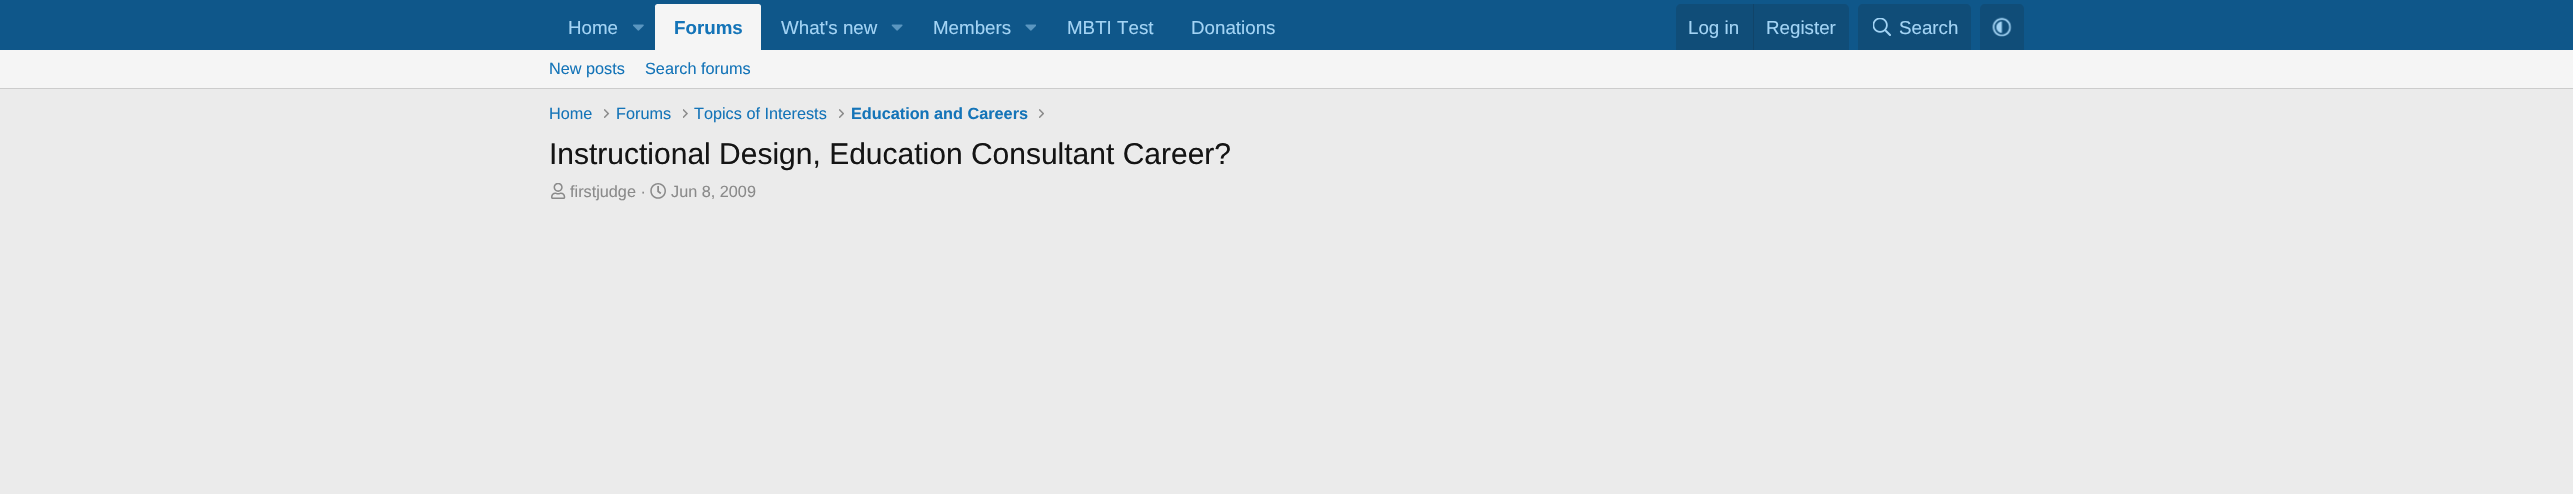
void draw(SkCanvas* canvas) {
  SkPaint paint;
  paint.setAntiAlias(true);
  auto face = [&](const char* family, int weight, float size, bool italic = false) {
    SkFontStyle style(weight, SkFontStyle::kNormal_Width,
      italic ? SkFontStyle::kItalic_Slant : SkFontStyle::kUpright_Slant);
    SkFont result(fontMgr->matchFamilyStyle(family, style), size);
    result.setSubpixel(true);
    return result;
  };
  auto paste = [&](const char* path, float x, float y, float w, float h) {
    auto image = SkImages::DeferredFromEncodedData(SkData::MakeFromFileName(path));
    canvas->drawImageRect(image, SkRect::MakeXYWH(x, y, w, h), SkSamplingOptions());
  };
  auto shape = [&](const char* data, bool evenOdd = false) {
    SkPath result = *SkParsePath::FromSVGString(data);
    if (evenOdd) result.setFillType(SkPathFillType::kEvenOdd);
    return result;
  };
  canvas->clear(0xffebebeb);
  paint.setColor(0xff0f578a);
  canvas->drawRect(SkRect::MakeXYWH(0, 0, 2573, 50), paint);
  paste("img/1.png", 633, 24, 11, 7);
  paint.setColor(0xfff5f5f5);
  canvas->drawPath(shape("M657.5 4H758.5C760 4 761 5 761 6.5V50H655V6.5C655 5 656 4 657.5 4Z"), paint);
  paste("img/2.png", 891, 24, 12, 7);
  paste("img/3.png", 1025, 24, 11, 7);
  paint.setColor(0xff104d78);
  canvas->drawPath(shape("M1681 4H1844C1847 4 1849 6 1849 9V50H1676V9C1676 6 1678 4 1681 4Z"), paint);
  paint.setColor(0xff114469);
  canvas->drawRect(SkRect::MakeXYWH(1753, 4, 1, 46), paint);
  paint.setColor(0xff104d78);
  canvas->drawPath(shape("M1863 4H1966C1969 4 1971 6 1971 9V50H1858V9C1858 6 1860 4 1863 4Z"), paint);
  paste("img/4.png", 1873, 18, 18, 18);
  canvas->drawPath(shape("M1985 4H2019C2022 4 2024 6 2024 9V50H1980V9C1980 6 1982 4 1985 4Z"), paint);
  paste("img/5.png", 1992, 17, 20, 20);
  paint.setColor(0xfff5f5f5);
  canvas->drawRect(SkRect::MakeXYWH(0, 50, 2573, 38), paint);
  paint.setColor(0xffcccccc);
  canvas->drawRect(SkRect::MakeXYWH(0, 88, 2573, 1), paint);
  paste("img/6.png", 604, 109, 6, 9);
  paste("img/7.png", 683, 109, 5, 9);
  paste("img/8.png", 839, 109, 5, 9);
  paste("img/8.png", 1039, 109, 5, 9);
  paste("img/9.png", 551, 183, 15, 16);
  paste("img/10.png", 650, 183, 16, 16);
  auto f0 = face("Liberation Sans", 400, 18.75f);
  paint.setColor(0xffa3d4f5);
  canvas->drawString("Home", 568, 34, f0, paint);
  auto f1 = face("Liberation Sans", 700, 18.75f);
  paint.setColor(0xff1474b8);
  canvas->drawString("Forums", 674, 34, f1, paint);
  paint.setColor(0xffa3d4f5);
  {
    const struct { const char* s; float x, y; } items[] = {
      {"What's new", 781, 34},
      {"Members", 933, 34},
      {"MBTI Test", 1067, 34},
      {"Donations", 1191, 34},
      {"Log in", 1688, 34},
      {"Register", 1766, 34},
      {"Search", 1899, 34},
    };
    for (auto [s, x, y] : items) {
      canvas->drawString(s, x, y, f0, paint);
    }
  }
  auto f2 = face("Liberation Sans", 400, 16.25f);
  paint.setColor(0xff1474b8);
  {
    const struct { const char* s; float x, y; } items[] = {
      {"New posts", 549, 74},
      {"Search forums", 645, 74},
      {"Home", 549, 119},
      {"Forums", 616, 119},
      {"Topics of Interests", 694, 119},
    };
    for (auto [s, x, y] : items) {
      canvas->drawString(s, x, y, f2, paint);
    }
  }
  auto f3 = face("Liberation Sans", 700, 16.25f);
  canvas->drawString("Education and Careers", 851, 119, f3, paint);
  auto f4 = face("Liberation Sans", 400, 30);
  paint.setColor(0xff141414);
  canvas->drawString("Instructional Design, Education Consultant Career?", 549, 164, f4, paint);
  paint.setColor(0xff8a8a8a);
  canvas->drawString("firstjudge ·", 570, 197, f2, paint);
  canvas->drawString("Jun 8, 2009", 671, 197, f2, paint);
}
